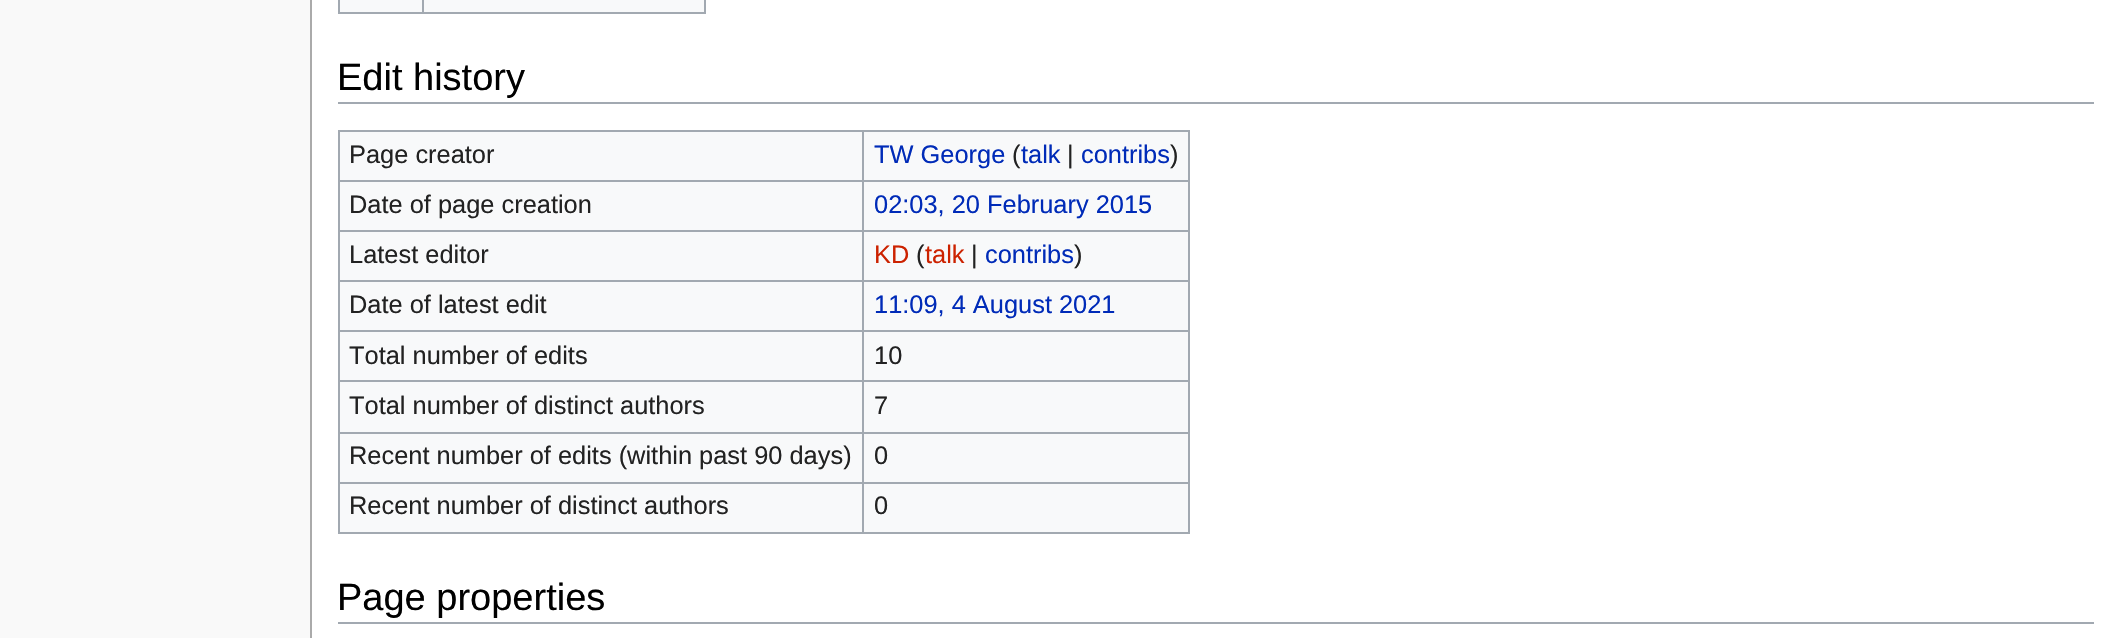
void draw(SkCanvas* canvas) {
  SkPaint paint;
  paint.setAntiAlias(true);
  auto face = [&](const char* family, int weight, float size, bool italic = false) {
    SkFontStyle style(weight, SkFontStyle::kNormal_Width,
      italic ? SkFontStyle::kItalic_Slant : SkFontStyle::kUpright_Slant);
    SkFont result(fontMgr->matchFamilyStyle(family, style), size);
    result.setSubpixel(true);
    return result;
  };
  canvas->clear(0xfff9f9f9);
  {
    const struct { float x, y, w, h; SkColor color; } items[] = {
      {312, 0, 1808, 638, 0xffffffff},
      {310, 0, 2, 638, 0xffaaaaaa},
      {340, 0, 364, 12, 0xfff8f9fa},
      {704, 0, 2, 14, 0xffa2a9b1},
      {338, 12, 368, 2, 0xffa2a9b1},
      {338, 0, 2, 14, 0xffa2a9b1},
      {422, 0, 2, 14, 0xffa2a9b1},
      {338, 102, 1756, 2, 0xffa2a9b1},
      {340, 132, 848, 400, 0xfff8f9fa},
      {338, 130, 852, 2, 0xffa2a9b1},
      {1188, 130, 2, 404, 0xffa2a9b1},
      {338, 532, 852, 2, 0xffa2a9b1},
      {338, 130, 2, 404, 0xffa2a9b1},
      {862, 180, 328, 2, 0xffa2a9b1},
      {862, 230, 328, 2, 0xffa2a9b1},
      {862, 280, 328, 2, 0xffa2a9b1},
      {862, 330, 328, 2, 0xffa2a9b1},
      {862, 380, 328, 2, 0xffa2a9b1},
      {862, 432, 328, 2, 0xffa2a9b1},
      {862, 482, 328, 2, 0xffa2a9b1},
      {862, 482, 2, 52, 0xffa2a9b1},
      {338, 482, 526, 2, 0xffa2a9b1},
      {862, 432, 2, 52, 0xffa2a9b1},
      {338, 432, 526, 2, 0xffa2a9b1},
      {862, 380, 2, 54, 0xffa2a9b1},
      {338, 380, 526, 2, 0xffa2a9b1},
      {862, 330, 2, 52, 0xffa2a9b1},
      {338, 330, 526, 2, 0xffa2a9b1},
      {862, 280, 2, 52, 0xffa2a9b1},
      {338, 280, 526, 2, 0xffa2a9b1},
      {862, 230, 2, 52, 0xffa2a9b1},
      {338, 230, 526, 2, 0xffa2a9b1},
      {862, 180, 2, 52, 0xffa2a9b1},
      {338, 180, 526, 2, 0xffa2a9b1},
      {862, 130, 2, 52, 0xffa2a9b1},
      {338, 622, 1756, 2, 0xffa2a9b1},
    };
    for (auto [x, y, w, h, color] : items) {
      paint.setColor(color);
      canvas->drawRect(SkRect::MakeXYWH(x, y, w, h), paint);
    }
  }
  auto f0 = face("Liberation Sans", 400, 38);
  paint.setColor(0xff000000);
  canvas->drawString("Edit history", 337, 90, f0, paint);
  auto f1 = face("Liberation Sans", 400, 25.4f);
  paint.setColor(0xff222222);
  canvas->drawString("Page creator", 349, 163, f1, paint);
  paint.setColor(0xff002bb8);
  canvas->drawString("TW George", 874, 163, f1, paint);
  paint.setColor(0xff222222);
  canvas->drawString("(", 1012, 163, f1, paint);
  paint.setColor(0xff002bb8);
  canvas->drawString("talk", 1021, 163, f1, paint);
  paint.setColor(0xff222222);
  canvas->drawString("|", 1067, 163, f1, paint);
  paint.setColor(0xff002bb8);
  canvas->drawString("contribs", 1081, 163, f1, paint);
  paint.setColor(0xff222222);
  canvas->drawString(")", 1170, 163, f1, paint);
  canvas->drawString("Date of page creation", 349, 213, f1, paint);
  paint.setColor(0xff002bb8);
  canvas->drawString("02:03, 20 February 2015", 874, 213, f1, paint);
  paint.setColor(0xff222222);
  canvas->drawString("Latest editor", 349, 263, f1, paint);
  paint.setColor(0xffcc2200);
  canvas->drawString("KD", 874, 263, f1, paint);
  paint.setColor(0xff222222);
  canvas->drawString("(", 916, 263, f1, paint);
  paint.setColor(0xffcc2200);
  canvas->drawString("talk", 925, 263, f1, paint);
  paint.setColor(0xff222222);
  canvas->drawString("|", 971, 263, f1, paint);
  paint.setColor(0xff002bb8);
  canvas->drawString("contribs", 985, 263, f1, paint);
  paint.setColor(0xff222222);
  canvas->drawString(")", 1074, 263, f1, paint);
  canvas->drawString("Date of latest edit", 349, 313, f1, paint);
  paint.setColor(0xff002bb8);
  canvas->drawString("11:09, 4 August 2021", 874, 313, f1, paint);
  paint.setColor(0xff222222);
  {
    const struct { const char* s; float x, y; } items[] = {
      {"Total number of edits", 349, 364},
      {"10", 874, 364},
      {"Total number of distinct authors", 349, 414},
      {"7", 874, 414},
      {"Recent number of edits (within past 90 days)", 349, 464},
      {"0", 874, 464},
      {"Recent number of distinct authors", 349, 514},
      {"0", 874, 514},
    };
    for (auto [s, x, y] : items) {
      canvas->drawString(s, x, y, f1, paint);
    }
  }
  paint.setColor(0xff000000);
  canvas->drawString("Page properties", 337, 610, f0, paint);
}
